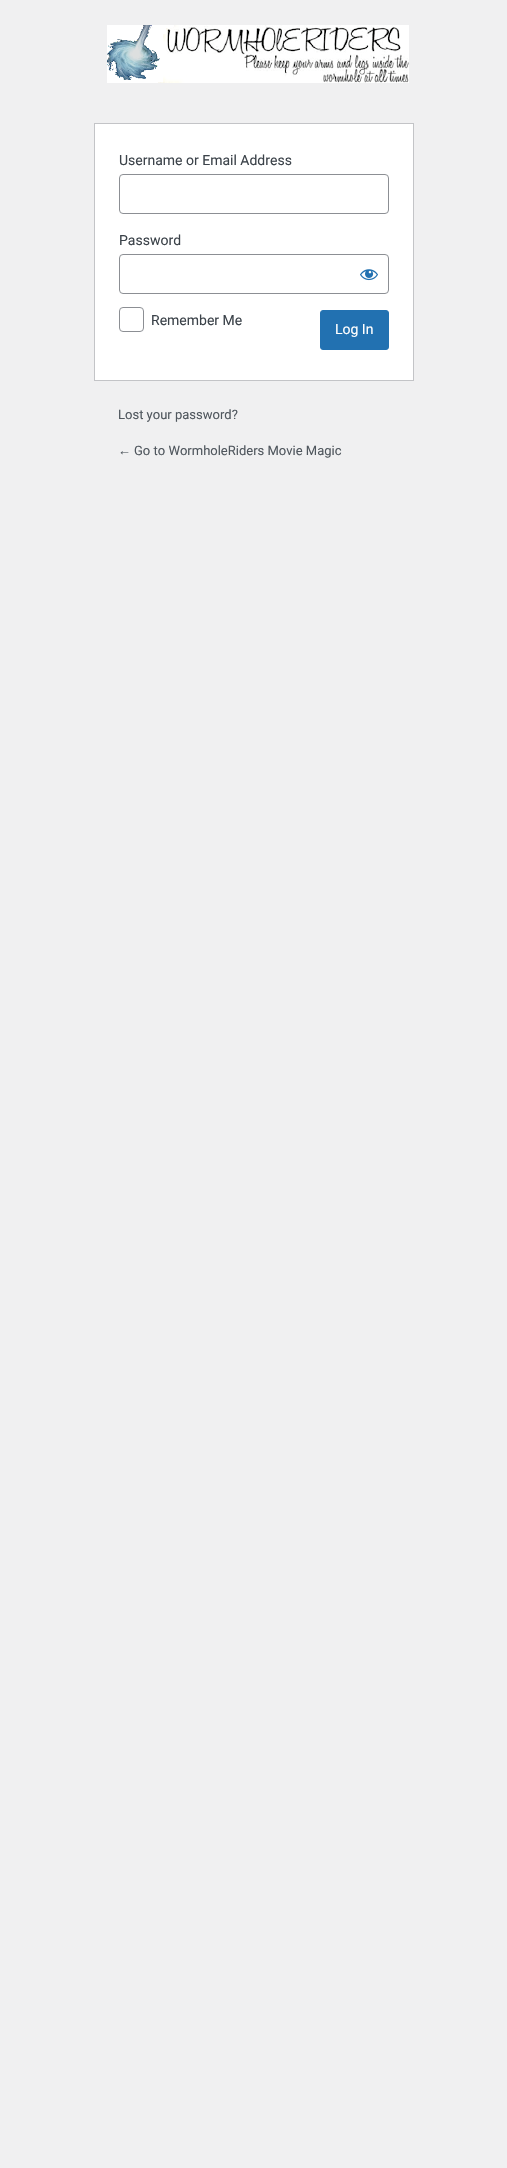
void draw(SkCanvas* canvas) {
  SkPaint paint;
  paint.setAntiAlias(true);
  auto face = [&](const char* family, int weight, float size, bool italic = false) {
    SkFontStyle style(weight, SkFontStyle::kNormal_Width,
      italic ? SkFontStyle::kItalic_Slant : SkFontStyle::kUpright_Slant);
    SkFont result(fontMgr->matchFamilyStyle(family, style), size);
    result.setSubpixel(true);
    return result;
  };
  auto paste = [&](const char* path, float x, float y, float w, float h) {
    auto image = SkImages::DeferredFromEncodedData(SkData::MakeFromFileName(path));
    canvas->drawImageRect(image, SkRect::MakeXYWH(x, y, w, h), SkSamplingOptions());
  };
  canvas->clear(0xfff0f0f1);
  paste("img/1.png", 107, 25, 302, 58);
  paint.setColor(0xffffffff);
  canvas->drawRect(SkRect::MakeXYWH(94.5f, 123.5f, 319, 257), paint);
  paint.setStroke(true);
  paint.setStrokeWidth(1);
  paint.setColor(0xffc3c4c7);
  canvas->drawRect(SkRect::MakeXYWH(94.5f, 123.5f, 319, 257), paint);
  paint.setColor(0xff8c8f94);
  canvas->drawRoundRect(SkRect::MakeXYWH(119.5f, 174.5f, 269, 39), 3.5f, 3.5f, paint);
  canvas->drawRoundRect(SkRect::MakeXYWH(119.5f, 254.5f, 269, 39), 3.5f, 3.5f, paint);
  paste("img/2.png", 360, 269, 18, 12);
  canvas->drawRoundRect(SkRect::MakeXYWH(119.5f, 307.5f, 24, 24), 3.5f, 3.5f, paint);
  paint.setStroke(false);
  paint.setColor(0xff2271b1);
  canvas->drawRoundRect(SkRect::MakeXYWH(320.5f, 310.5f, 68, 39), 2.5f, 2.5f, paint);
  paint.setStroke(true);
  canvas->drawRoundRect(SkRect::MakeXYWH(320.5f, 310.5f, 68, 39), 2.5f, 2.5f, paint);
  auto f0 = face("Roboto", 400, 14);
  paint.setStroke(false);
  paint.setColor(0xff3c434a);
  {
    const struct { const char* s; float x, y; } items[] = {
      {"Username or Email Address", 119, 165},
      {"Password", 119, 245},
      {"Remember Me", 151, 325},
    };
    for (auto [s, x, y] : items) {
      canvas->drawString(s, x, y, f0, paint);
    }
  }
  paint.setColor(0xffffffff);
  canvas->drawString("Log In", 335, 334, f0, paint);
  auto f1 = face("Roboto", 400, 13);
  paint.setColor(0xff50575e);
  canvas->drawString("Lost your password?", 118, 419, f1, paint);
  auto f2 = face("Liberation Sans", 400, 13);
  canvas->drawString("←", 118, 455, f2, paint);
  canvas->drawString("Go to WormholeRiders Movie Magic", 134, 455, f1, paint);
}
